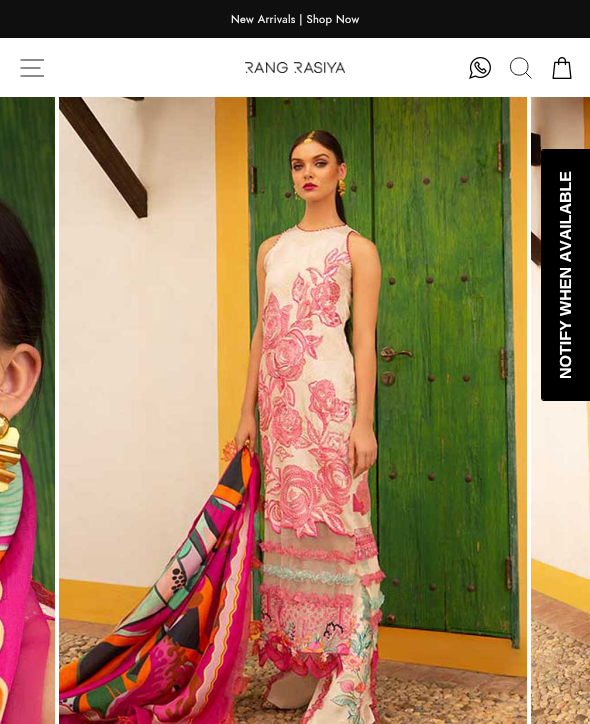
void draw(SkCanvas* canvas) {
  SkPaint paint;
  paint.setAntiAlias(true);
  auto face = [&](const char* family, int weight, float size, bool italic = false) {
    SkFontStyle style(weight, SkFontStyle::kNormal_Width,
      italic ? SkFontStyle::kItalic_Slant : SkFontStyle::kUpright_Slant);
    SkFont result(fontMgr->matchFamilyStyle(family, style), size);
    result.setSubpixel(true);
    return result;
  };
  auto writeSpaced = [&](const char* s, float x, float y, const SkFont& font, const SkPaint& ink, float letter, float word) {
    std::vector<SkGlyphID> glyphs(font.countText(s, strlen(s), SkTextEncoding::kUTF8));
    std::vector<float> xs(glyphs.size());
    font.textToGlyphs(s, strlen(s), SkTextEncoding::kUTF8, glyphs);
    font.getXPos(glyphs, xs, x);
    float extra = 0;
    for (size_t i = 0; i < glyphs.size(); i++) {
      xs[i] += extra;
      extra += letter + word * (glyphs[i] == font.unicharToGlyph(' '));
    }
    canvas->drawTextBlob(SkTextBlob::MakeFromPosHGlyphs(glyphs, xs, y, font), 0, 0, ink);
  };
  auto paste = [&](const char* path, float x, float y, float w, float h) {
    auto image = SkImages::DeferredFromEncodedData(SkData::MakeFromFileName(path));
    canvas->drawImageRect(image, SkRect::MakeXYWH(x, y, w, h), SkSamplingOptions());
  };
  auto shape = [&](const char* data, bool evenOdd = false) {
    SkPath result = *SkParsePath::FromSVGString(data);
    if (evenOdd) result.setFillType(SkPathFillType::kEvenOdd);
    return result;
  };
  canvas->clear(0xffffffff);
  paint.setColor(0xff0f0f0f);
  canvas->drawRect(SkRect::MakeXYWH(0, 0, 590, 38), paint);
  paint.setStroke(true);
  paint.setStrokeWidth(0.9f);
  paint.setColor(0xff000000);
  canvas->drawPath(shape("M20.5 60H44M20.5 68H40.5M20.5 76H44"), paint);
  paste("img/1.png", 245, 62, 100, 11);
  paste("img/2.png", 469, 57, 22, 22);
  canvas->drawPath(shape("M528 66.5C528 78 510.5 78 510.5 66.5C510.5 55 528 55 528 66.5ZM531.5 78.5L525.5 72.5"), paint);
  paste("img/3.png", 552, 57, 20, 22);
  paste("img/4.png", 0, 97, 55, 627);
  paste("img/5.png", 59, 97, 468, 627);
  paste("img/6.png", 531, 97, 59, 627);
  paint.setStroke(false);
  canvas->drawPath(shape("M542 398V152C542 151 543 150 544 150H590V400H544C543 400 542 399 542 398Z"), paint);
  canvas->drawPath(shape("M541 398V152C541 150 542 149 544 149H590V401H544C542 401 541 399 541 398ZM542 398V152C542 151 543 150 544 150H590V400H544C543 400 542 399 542 398Z", true), paint);
  auto f0 = face("Jost", 400, 11.25f);
  paint.setColor(0xffffffff);
  writeSpaced("New Arrivals | Shop Now", 231, 23, f0, paint, 0.3f, 0);
  auto f1 = face("Liberation Sans", 700, 16);
  canvas->save();
  canvas->rotate(-90, 571, 379);
  canvas->drawString("NOTIFY WHEN AVAILABLE", 571, 379, f1, paint);
  canvas->restore();
}
